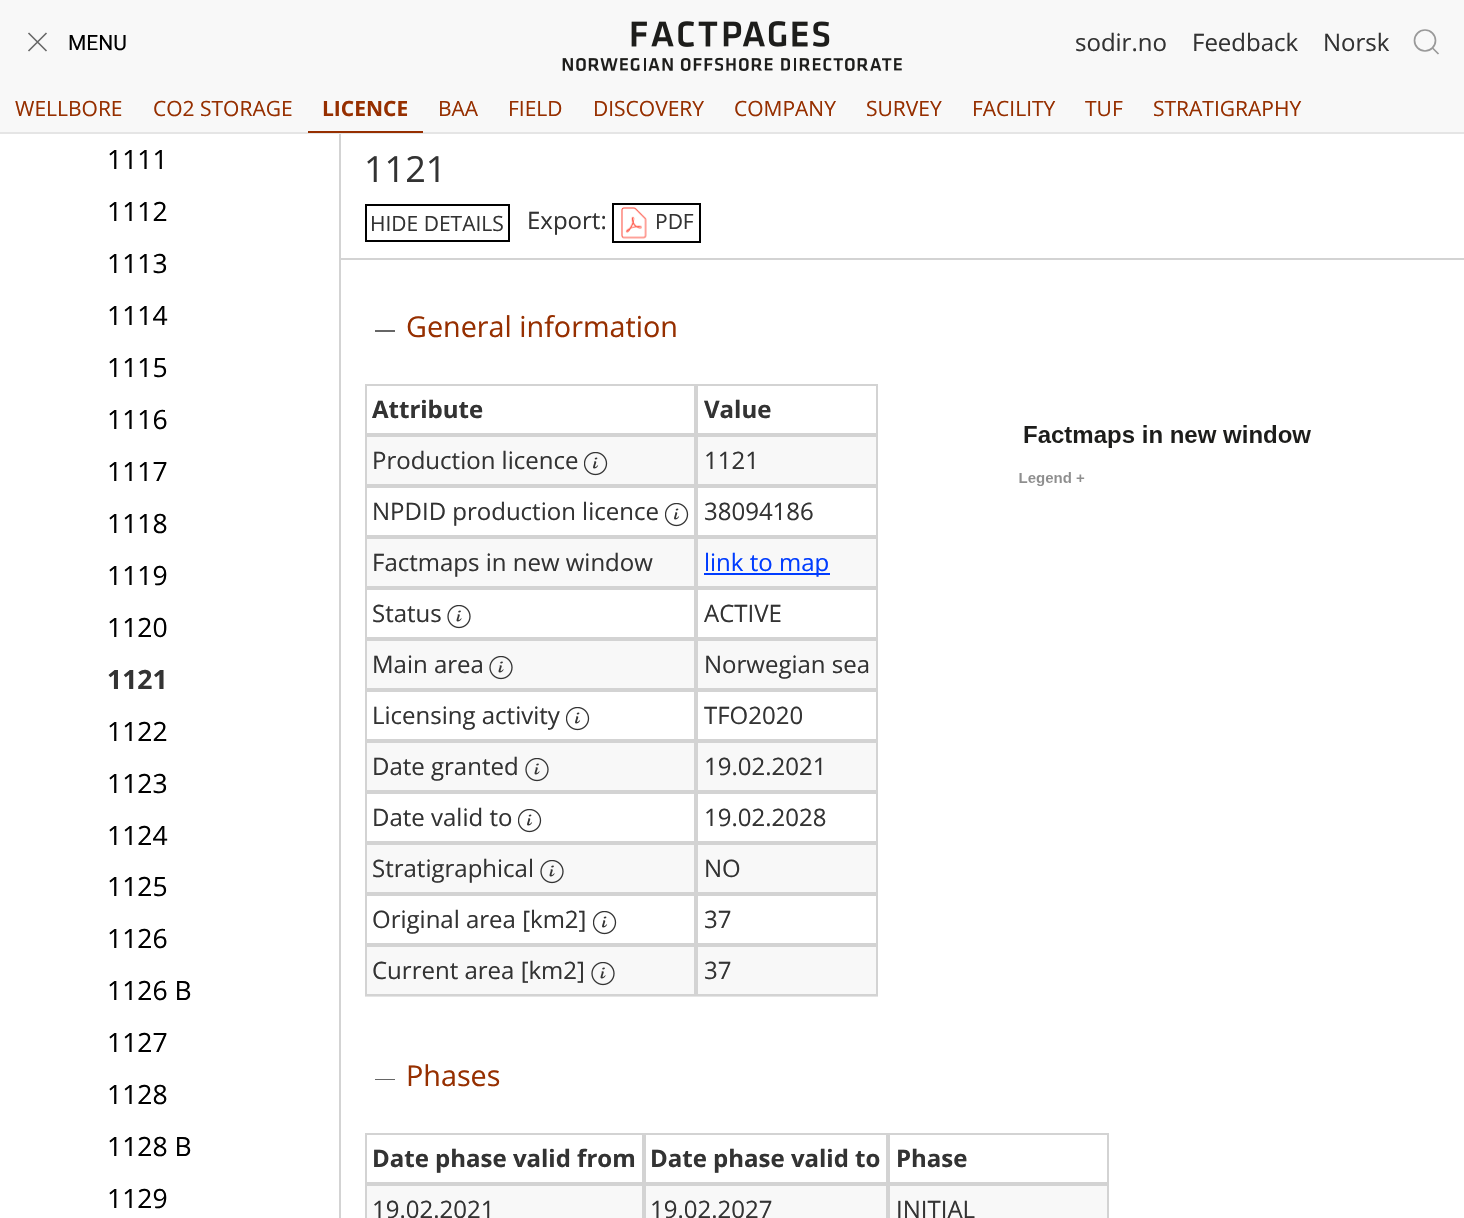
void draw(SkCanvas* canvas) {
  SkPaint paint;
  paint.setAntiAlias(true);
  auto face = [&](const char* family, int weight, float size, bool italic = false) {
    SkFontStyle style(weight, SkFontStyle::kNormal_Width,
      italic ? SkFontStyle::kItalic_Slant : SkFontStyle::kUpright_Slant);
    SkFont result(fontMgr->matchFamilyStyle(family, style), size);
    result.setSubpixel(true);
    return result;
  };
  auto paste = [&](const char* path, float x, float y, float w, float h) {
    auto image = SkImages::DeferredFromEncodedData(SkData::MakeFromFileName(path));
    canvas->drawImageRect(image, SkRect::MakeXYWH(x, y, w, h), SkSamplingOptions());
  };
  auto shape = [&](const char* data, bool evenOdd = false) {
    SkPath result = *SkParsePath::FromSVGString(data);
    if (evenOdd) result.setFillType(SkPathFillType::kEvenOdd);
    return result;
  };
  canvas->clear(0xffffffff);
  paint.setColor(0xffe5e5e5);
  canvas->drawRect(SkRect::MakeXYWH(0, 132, 1464, 2), paint);
  paint.setColor(0xfff8f8f8);
  canvas->drawRect(SkRect::MakeXYWH(0, 0, 1464, 132), paint);
  paint.setStroke(true);
  paint.setStrokeWidth(1.6f);
  paint.setColor(0xff666666);
  canvas->drawPath(shape("M46.5 51L28.5 33M46.5 33L28.5 51"), paint);
  paste("img/1.png", 562, 21, 340, 50);
  paint.setStrokeWidth(1.7f);
  paint.setColor(0xff999999);
  canvas->drawCircle(1425, 40.5f, 10.5f, paint);
  canvas->drawPath(shape("M1432.5 48L1438.5 54Z"), paint);
  paint.setStroke(false);
  {
    const struct { float x, y, w, h; SkColor color; } items[] = {
      {308, 131, 115, 2, 0xff962f00},
      {339, 134, 2, 1084, 0xffd3d3d3},
      {341, 258, 1123, 2, 0xffd3d3d3},
    };
    for (auto [x, y, w, h, color] : items) {
      paint.setColor(color);
      canvas->drawRect(SkRect::MakeXYWH(x, y, w, h), paint);
    }
  }
  paint.setStroke(true);
  paint.setStrokeWidth(2);
  paint.setColor(0xff000000);
  canvas->drawRect(SkRect::MakeXYWH(366, 205, 143, 36), paint);
  canvas->drawRect(SkRect::MakeXYWH(613, 204, 87, 38), paint);
  paste("img/2.png", 621, 207, 26, 32);
  paint.setStroke(false);
  paint.setColor(0xff666666);
  canvas->drawRect(SkRect::MakeXYWH(375, 330, 20, 2), paint);
  paint.setStroke(true);
  paint.setColor(0xffd3d3d3);
  canvas->drawRect(SkRect::MakeXYWH(366, 385, 329, 49), paint);
  canvas->drawRect(SkRect::MakeXYWH(697, 385, 180, 49), paint);
  paint.setStroke(false);
  paint.setColor(0xfff8f8f8);
  canvas->drawRect(SkRect::MakeXYWH(367, 437, 509, 47), paint);
  paint.setStroke(true);
  paint.setColor(0xffd3d3d3);
  canvas->drawRect(SkRect::MakeXYWH(366, 436, 329, 49), paint);
  paste("img/3.png", 584, 452, 24, 24);
  canvas->drawRect(SkRect::MakeXYWH(697, 436, 180, 49), paint);
  canvas->drawRect(SkRect::MakeXYWH(366, 487, 329, 49), paint);
  paste("img/4.png", 665, 503, 24, 24);
  canvas->drawRect(SkRect::MakeXYWH(697, 487, 180, 49), paint);
  paint.setStroke(false);
  paint.setColor(0xfff8f8f8);
  canvas->drawRect(SkRect::MakeXYWH(367, 539, 509, 47), paint);
  paint.setStroke(true);
  paint.setColor(0xffd3d3d3);
  canvas->drawRect(SkRect::MakeXYWH(366, 538, 329, 49), paint);
  canvas->drawRect(SkRect::MakeXYWH(697, 538, 180, 49), paint);
  paint.setStroke(false);
  paint.setColor(0xff003cff);
  canvas->drawRect(SkRect::MakeXYWH(704, 573, 126, 2), paint);
  paint.setStroke(true);
  paint.setColor(0xffd3d3d3);
  canvas->drawRect(SkRect::MakeXYWH(366, 589, 329, 49), paint);
  paste("img/5.png", 447, 605, 24, 24);
  canvas->drawRect(SkRect::MakeXYWH(697, 589, 180, 49), paint);
  paint.setStroke(false);
  paint.setColor(0xfff8f8f8);
  canvas->drawRect(SkRect::MakeXYWH(367, 641, 509, 47), paint);
  paint.setStroke(true);
  paint.setColor(0xffd3d3d3);
  canvas->drawRect(SkRect::MakeXYWH(366, 640, 329, 49), paint);
  paste("img/6.png", 489, 656, 24, 24);
  canvas->drawRect(SkRect::MakeXYWH(697, 640, 180, 49), paint);
  canvas->drawRect(SkRect::MakeXYWH(366, 691, 329, 49), paint);
  paste("img/4.png", 566, 707, 24, 24);
  canvas->drawRect(SkRect::MakeXYWH(697, 691, 180, 49), paint);
  paint.setStroke(false);
  paint.setColor(0xfff8f8f8);
  canvas->drawRect(SkRect::MakeXYWH(367, 743, 509, 47), paint);
  paint.setStroke(true);
  paint.setColor(0xffd3d3d3);
  canvas->drawRect(SkRect::MakeXYWH(366, 742, 329, 49), paint);
  paste("img/6.png", 525, 758, 24, 24);
  canvas->drawRect(SkRect::MakeXYWH(697, 742, 180, 49), paint);
  canvas->drawRect(SkRect::MakeXYWH(366, 793, 329, 49), paint);
  paste("img/4.png", 518, 809, 24, 24);
  canvas->drawRect(SkRect::MakeXYWH(697, 793, 180, 49), paint);
  paint.setStroke(false);
  paint.setColor(0xfff8f8f8);
  canvas->drawRect(SkRect::MakeXYWH(367, 845, 509, 47), paint);
  paint.setStroke(true);
  paint.setColor(0xffd3d3d3);
  canvas->drawRect(SkRect::MakeXYWH(366, 844, 329, 49), paint);
  paste("img/6.png", 540, 860, 24, 24);
  canvas->drawRect(SkRect::MakeXYWH(697, 844, 180, 49), paint);
  canvas->drawRect(SkRect::MakeXYWH(366, 895, 329, 49), paint);
  paste("img/4.png", 593, 911, 24, 24);
  canvas->drawRect(SkRect::MakeXYWH(697, 895, 180, 49), paint);
  paint.setStroke(false);
  paint.setColor(0xfff8f8f8);
  canvas->drawRect(SkRect::MakeXYWH(367, 947, 509, 47), paint);
  paint.setColor(0xffe5e5e5);
  canvas->drawRect(SkRect::MakeXYWH(365, 996, 513, 1), paint);
  paint.setStroke(true);
  paint.setColor(0xffd3d3d3);
  canvas->drawRect(SkRect::MakeXYWH(366, 946, 329, 49), paint);
  paste("img/6.png", 591, 962, 24, 24);
  canvas->drawRect(SkRect::MakeXYWH(697, 946, 180, 49), paint);
  paste("img/7.png", 1019, 425, 292, 61);
  paint.setStroke(false);
  paint.setColor(0xff666666);
  canvas->drawRect(SkRect::MakeXYWH(375, 1079, 20, 1), paint);
  paint.setStroke(true);
  paint.setColor(0xffd3d3d3);
  canvas->drawRect(SkRect::MakeXYWH(366, 1134, 277, 49), paint);
  canvas->drawRect(SkRect::MakeXYWH(645, 1134, 242, 49), paint);
  canvas->drawRect(SkRect::MakeXYWH(889, 1134, 219, 49), paint);
  paint.setStroke(false);
  paint.setColor(0xfff8f8f8);
  canvas->drawRect(SkRect::MakeXYWH(367, 1186, 740, 32), paint);
  paint.setStroke(true);
  paint.setColor(0xffd3d3d3);
  canvas->drawRect(SkRect::MakeXYWH(366, 1185, 277, 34), paint);
  canvas->drawRect(SkRect::MakeXYWH(645, 1185, 242, 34), paint);
  canvas->drawRect(SkRect::MakeXYWH(889, 1185, 219, 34), paint);
  auto f0 = face("Roboto", 400, 21);
  paint.setStroke(false);
  paint.setColor(0xff000000);
  canvas->drawString("MENU", 68, 50, f0, paint);
  auto f1 = face("Open Sans", 400, 24);
  paint.setColor(0xff333333);
  {
    const struct { const char* s; float x, y; } items[] = {
      {"sodir.no", 1075, 51},
      {"Feedback", 1192, 51},
      {"Norsk", 1323, 51},
    };
    for (auto [s, x, y] : items) {
      canvas->drawString(s, x, y, f1, paint);
    }
  }
  auto f2 = face("Open Sans", 400, 21);
  paint.setColor(0xff962f00);
  canvas->drawString("WELLBORE", 15, 116, f2, paint);
  canvas->drawString("CO2 STORAGE", 153, 116, f2, paint);
  auto f3 = face("Open Sans", 700, 21);
  canvas->drawString("LICENCE", 322, 116, f3, paint);
  {
    const struct { const char* s; float x, y; } items[] = {
      {"BAA", 438, 116},
      {"FIELD", 508, 116},
      {"DISCOVERY", 593, 116},
      {"COMPANY", 734, 116},
      {"SURVEY", 866, 116},
      {"FACILITY", 972, 116},
      {"TUF", 1085, 116},
      {"STRATIGRAPHY", 1153, 116},
    };
    for (auto [s, x, y] : items) {
      canvas->drawString(s, x, y, f2, paint);
    }
  }
  auto f4 = face("Open Sans", 400, 26.5f);
  paint.setColor(0xff000000);
  {
    const struct { const char* s; float x, y; } items[] = {
      {"1111", 107, 169},
      {"1112", 107, 221},
      {"1113", 107, 273},
      {"1114", 107, 325},
      {"1115", 107, 377},
      {"1116", 107, 429},
      {"1117", 107, 481},
      {"1118", 107, 533},
      {"1119", 107, 585},
      {"1120", 107, 637},
    };
    for (auto [s, x, y] : items) {
      canvas->drawString(s, x, y, f4, paint);
    }
  }
  auto f5 = face("Open Sans", 700, 26.5f);
  paint.setColor(0xff333333);
  canvas->drawString("1121", 107, 689, f5, paint);
  paint.setColor(0xff000000);
  {
    const struct { const char* s; float x, y; } items[] = {
      {"1122", 107, 741},
      {"1123", 107, 793},
      {"1124", 107, 845},
      {"1125", 107, 896},
      {"1126", 107, 948},
      {"1126 B", 107, 1000},
      {"1127", 107, 1052},
      {"1128", 107, 1104},
      {"1128 B", 107, 1156},
      {"1129", 107, 1208},
    };
    for (auto [s, x, y] : items) {
      canvas->drawString(s, x, y, f4, paint);
    }
  }
  auto f6 = face("Open Sans", 400, 36);
  paint.setColor(0xff333333);
  canvas->drawString("1121", 364, 182, f6, paint);
  canvas->drawString("HIDE DETAILS", 370, 231, f2, paint);
  canvas->drawString("Export:", 527, 229, f1, paint);
  canvas->drawString("PDF", 655, 229, f2, paint);
  auto f7 = face("Open Sans", 400, 28.75f);
  paint.setColor(0xff962f00);
  canvas->drawString("General information", 406, 337, f7, paint);
  auto f8 = face("Open Sans", 700, 24);
  paint.setColor(0xff333333);
  canvas->drawString("Attribute", 372, 418, f8, paint);
  canvas->drawString("Value", 704, 418, f8, paint);
  {
    const struct { const char* s; float x, y; } items[] = {
      {"Production licence", 372, 469},
      {"1121", 704, 469},
      {"NPDID production licence", 372, 520},
      {"38094186", 704, 520},
      {"Factmaps in new window", 372, 571},
    };
    for (auto [s, x, y] : items) {
      canvas->drawString(s, x, y, f1, paint);
    }
  }
  paint.setColor(0xff003cff);
  canvas->drawString("link to map", 704, 571, f1, paint);
  paint.setColor(0xff333333);
  {
    const struct { const char* s; float x, y; } items[] = {
      {"Status", 372, 622},
      {"ACTIVE", 704, 622},
      {"Main area", 372, 673},
      {"Norwegian sea", 704, 673},
      {"Licensing activity", 372, 724},
      {"TFO2020", 704, 724},
      {"Date granted", 372, 775},
      {"19.02.2021", 704, 775},
      {"Date valid to", 372, 826},
      {"19.02.2028", 704, 826},
      {"Stratigraphical", 372, 877},
      {"NO", 704, 877},
      {"Original area [km2]", 372, 928},
      {"37", 704, 928},
      {"Current area [km2]", 372, 979},
      {"37", 704, 979},
    };
    for (auto [s, x, y] : items) {
      canvas->drawString(s, x, y, f1, paint);
    }
  }
  paint.setColor(0xff962f00);
  canvas->drawString("Phases", 406, 1086, f7, paint);
  paint.setColor(0xff333333);
  {
    const struct { const char* s; float x, y; } items[] = {
      {"Date phase valid from", 372, 1167},
      {"Date phase valid to", 650, 1167},
      {"Phase", 896, 1167},
    };
    for (auto [s, x, y] : items) {
      canvas->drawString(s, x, y, f8, paint);
    }
  }
  {
    const struct { const char* s; float x, y; } items[] = {
      {"19.02.2021", 372, 1218},
      {"19.02.2027", 650, 1218},
      {"INITIAL", 896, 1218},
    };
    for (auto [s, x, y] : items) {
      canvas->drawString(s, x, y, f1, paint);
    }
  }
}
